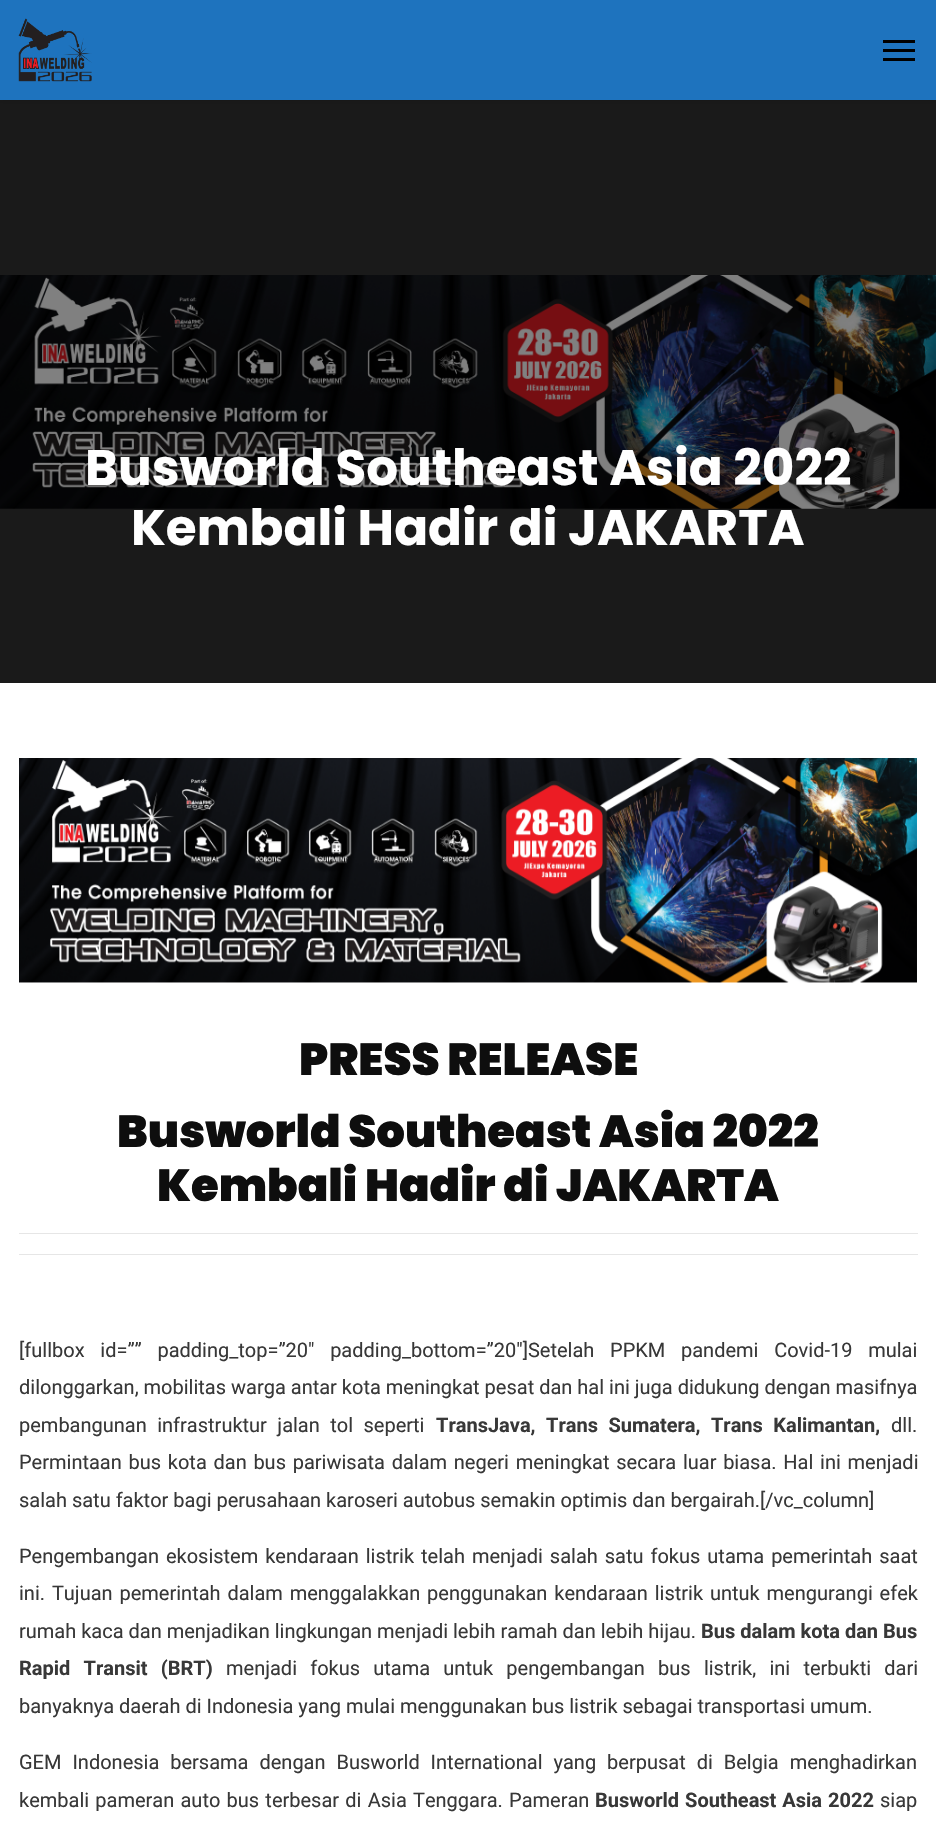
void draw(SkCanvas* canvas) {
  SkPaint paint;
  paint.setAntiAlias(true);
  auto face = [&](const char* family, int weight, float size, bool italic = false) {
    SkFontStyle style(weight, SkFontStyle::kNormal_Width,
      italic ? SkFontStyle::kItalic_Slant : SkFontStyle::kUpright_Slant);
    SkFont result(fontMgr->matchFamilyStyle(family, style), size);
    result.setSubpixel(true);
    return result;
  };
  auto writeSpaced = [&](const char* s, float x, float y, const SkFont& font, const SkPaint& ink, float letter, float word) {
    std::vector<SkGlyphID> glyphs(font.countText(s, strlen(s), SkTextEncoding::kUTF8));
    std::vector<float> xs(glyphs.size());
    font.textToGlyphs(s, strlen(s), SkTextEncoding::kUTF8, glyphs);
    font.getXPos(glyphs, xs, x);
    float extra = 0;
    for (size_t i = 0; i < glyphs.size(); i++) {
      xs[i] += extra;
      extra += letter + word * (glyphs[i] == font.unicharToGlyph(' '));
    }
    canvas->drawTextBlob(SkTextBlob::MakeFromPosHGlyphs(glyphs, xs, y, font), 0, 0, ink);
  };
  auto paste = [&](const char* path, float x, float y, float w, float h) {
    auto image = SkImages::DeferredFromEncodedData(SkData::MakeFromFileName(path));
    canvas->drawImageRect(image, SkRect::MakeXYWH(x, y, w, h), SkSamplingOptions());
  };
  canvas->clear(0xffffffff);
  paint.setColor(0xff1a1a1a);
  canvas->drawRect(SkRect::MakeXYWH(0, 100, 936, 583), paint);
  paint.setColor(0x26000000);
  paint.setMaskFilter(SkMaskFilter::MakeBlur(kNormal_SkBlurStyle, 3));
  canvas->drawRect(SkRect::MakeXYWH(0, 0, 936, 100), paint);
  paint.setMaskFilter(nullptr);
  paint.setColor(0xff1e73be);
  canvas->drawRect(SkRect::MakeXYWH(0, 0, 936, 100), paint);
  paste("img/1.png", 18, 18, 74, 64);
  {
    const struct { float x, y, w, h; SkColor color; } items[] = {
      {883, 40, 32, 3, 0xff000000},
      {883, 49, 32, 3, 0xff000000},
      {883, 58, 32, 3, 0xff000000},
    };
    for (auto [x, y, w, h, color] : items) {
      paint.setColor(color);
      canvas->drawRect(SkRect::MakeXYWH(x, y, w, h), paint);
    }
  }
  paste("img/2.png", 0, 275, 936, 234);
  paste("img/3.png", 19, 758, 898, 225);
  paint.setColor(0xffe6e6e6);
  canvas->drawRect(SkRect::MakeXYWH(19, 1233, 899, 1), paint);
  canvas->drawRect(SkRect::MakeXYWH(19, 1254, 899, 1), paint);
  auto f0 = face("Poppins", 700, 50);
  paint.setColor(0xffffffff);
  canvas->drawString("Busworld Southeast Asia 2022", 85, 485, f0, paint);
  canvas->drawString("Kembali Hadir di JAKARTA", 131, 545, f0, paint);
  auto f1 = face("Poppins", 900, 45);
  paint.setColor(0xff0e0e0e);
  {
    const struct { const char* s; float x, y; } items[] = {
      {"PRESS RELEASE", 299, 1075},
      {"Busworld Southeast Asia 2022", 117, 1147},
      {"Kembali Hadir di JAKARTA", 157, 1201},
    };
    for (auto [s, x, y] : items) {
      canvas->drawString(s, x, y, f1, paint);
    }
  }
  auto f2 = face("Roboto", 400, 20);
  paint.setColor(0xff383838);
  writeSpaced("[fullbox id=”” padding_top=”20″ padding_bottom=”20″]Setelah PPKM pandemi Covid-19 mulai", 19, 1357, f2, paint, 0, 10.75f);
  canvas->drawString("dilonggarkan, mobilitas warga antar kota meningkat pesat dan hal ini juga didukung dengan masifnya", 19, 1394, f2, paint);
  writeSpaced("pembangunan infrastruktur jalan tol seperti", 19, 1432, f2, paint, 0, 5.5f);
  auto f3 = face("Roboto", 700, 20);
  writeSpaced("TransJava, Trans Sumatera, Trans Kalimantan,", 436, 1432, f3, paint, 0, 5.5f);
  canvas->drawString("dll.", 891, 1432, f2, paint);
  writeSpaced("Permintaan bus kota dan bus pariwisata dalam negeri meningkat secara luar biasa. Hal ini menjadi", 19, 1469, f2, paint, 0, 1.75f);
  canvas->drawString("salah satu faktor bagi perusahaan karoseri autobus semakin optimis dan bergairah.[/vc_column]", 19, 1507, f2, paint);
  writeSpaced("Pengembangan ekosistem kendaraan listrik telah menjadi salah satu fokus utama pemerintah saat", 19, 1563, f2, paint, 0, 2);
  writeSpaced("ini. Tujuan pemerintah dalam menggalakkan penggunakan kendaraan listrik untuk mengurangi efek", 19, 1600, f2, paint, 0, 1.9f);
  canvas->drawString("rumah kaca dan menjadikan lingkungan menjadi lebih ramah dan lebih hijau.", 19, 1638, f2, paint);
  canvas->drawString("Bus dalam kota dan Bus", 701, 1638, f3, paint);
  writeSpaced("Rapid Transit (BRT)", 19, 1675, f3, paint, 0, 8.25f);
  writeSpaced("menjadi fokus utama untuk pengembangan bus listrik, ini terbukti dari", 226, 1675, f2, paint, 0, 8.25f);
  canvas->drawString("banyaknya daerah di Indonesia yang mulai menggunakan bus listrik sebagai transportasi umum.", 19, 1713, f2, paint);
  writeSpaced("GEM Indonesia bersama dengan Busworld International yang berpusat di Belgia menghadirkan", 19, 1769, f2, paint, 0, 6);
  writeSpaced("kembali pameran auto bus terbesar di Asia Tenggara. Pameran", 19, 1807, f2, paint, 0, 1.25f);
  writeSpaced("Busworld Southeast Asia 2022", 595, 1807, f3, paint, 0, 1);
  canvas->drawString("siap", 880, 1807, f2, paint);
}
